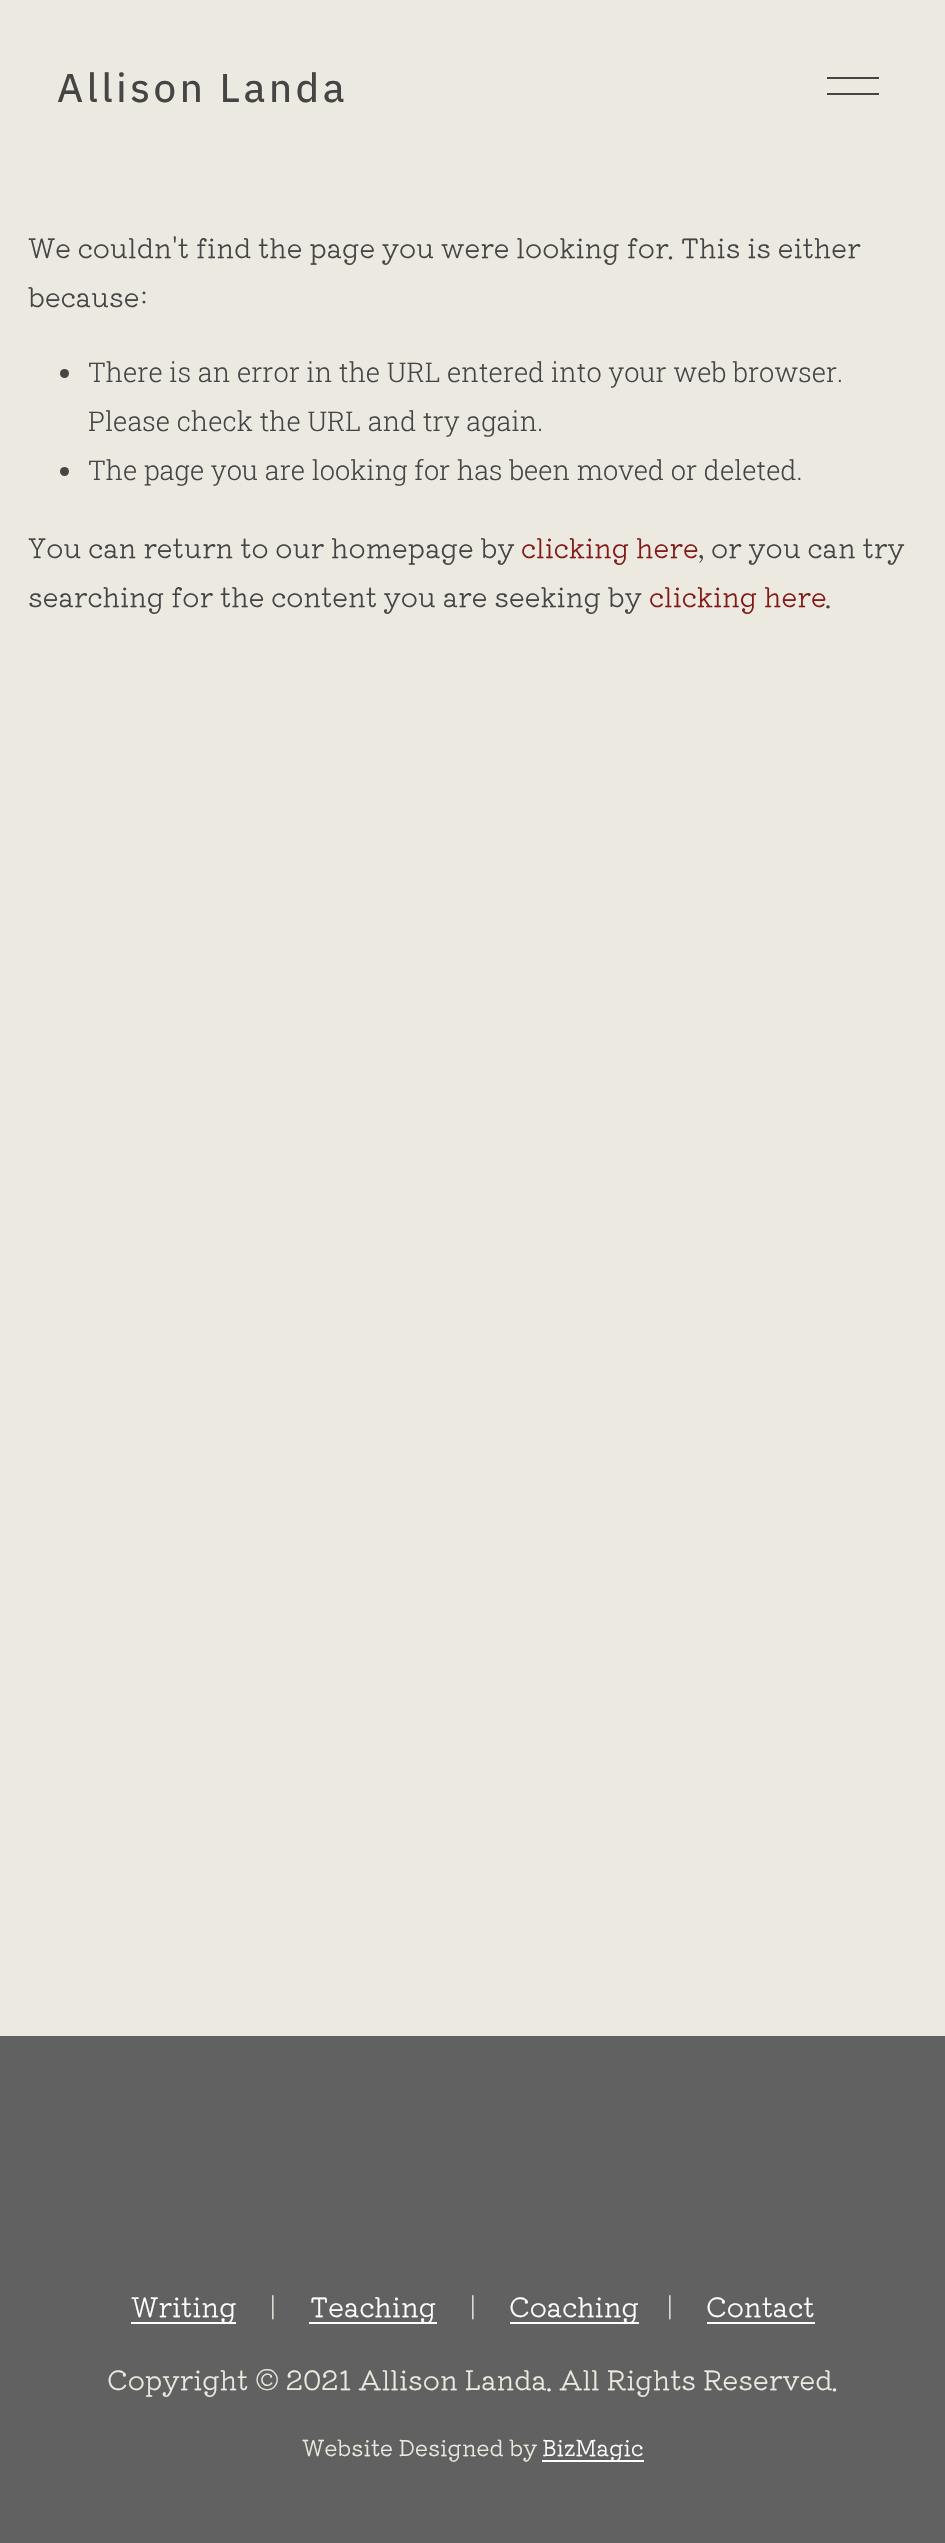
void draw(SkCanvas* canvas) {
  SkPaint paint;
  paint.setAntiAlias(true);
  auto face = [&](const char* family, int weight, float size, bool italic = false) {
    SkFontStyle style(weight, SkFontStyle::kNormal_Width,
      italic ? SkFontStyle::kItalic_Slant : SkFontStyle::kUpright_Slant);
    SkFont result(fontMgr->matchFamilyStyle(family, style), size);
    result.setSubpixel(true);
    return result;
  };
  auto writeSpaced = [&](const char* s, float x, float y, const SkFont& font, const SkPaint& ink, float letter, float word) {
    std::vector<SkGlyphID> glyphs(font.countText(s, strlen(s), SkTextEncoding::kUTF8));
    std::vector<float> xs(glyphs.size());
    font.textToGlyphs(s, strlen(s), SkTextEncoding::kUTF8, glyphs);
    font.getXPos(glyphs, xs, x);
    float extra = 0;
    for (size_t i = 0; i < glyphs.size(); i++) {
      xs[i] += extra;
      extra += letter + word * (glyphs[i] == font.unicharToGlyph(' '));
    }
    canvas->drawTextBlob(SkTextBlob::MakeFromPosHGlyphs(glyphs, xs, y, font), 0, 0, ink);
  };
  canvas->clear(0xffebe9e0);
  paint.setColor(0xff454545);
  canvas->drawRect(SkRect::MakeXYWH(827, 77, 52, 2), paint);
  canvas->drawRect(SkRect::MakeXYWH(827, 93, 52, 2), paint);
  canvas->drawCircle(64.5f, 373.5f, 4.5f, paint);
  canvas->drawCircle(64.5f, 471.5f, 4.5f, paint);
  {
    const struct { float x, y, w, h; SkColor color; } items[] = {
      {0, 2036, 945, 507, 0xff606160},
      {131, 2322, 105, 2, 0xffffffff},
      {309, 2322, 128, 2, 0xffffffff},
      {510, 2322, 129, 2, 0xffffffff},
      {707, 2322, 108, 2, 0xffffffff},
      {542, 2460, 102, 2, 0xffffffff},
    };
    for (auto [x, y, w, h, color] : items) {
      paint.setColor(color);
      canvas->drawRect(SkRect::MakeXYWH(x, y, w, h), paint);
    }
  }
  auto f0 = face("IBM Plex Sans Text", 500, 40.25f);
  paint.setColor(0xff454545);
  writeSpaced("Allison Landa", 57, 102, f0, paint, 3.6f, 0);
  auto f1 = face("Kiwi Maru", 300, 27.25f);
  canvas->drawString("We couldn't find the page you were looking for. This is either", 28, 258, f1, paint);
  canvas->drawString("because:", 28, 307, f1, paint);
  auto f2 = face("Roboto Slab", 300, 27.25f);
  {
    const struct { const char* s; float x, y; } items[] = {
      {"There is an error in the URL entered into your web browser.", 88, 382},
      {"Please check the URL and try again.", 88, 431},
      {"The page you are looking for has been moved or deleted.", 88, 480},
    };
    for (auto [s, x, y] : items) {
      canvas->drawString(s, x, y, f2, paint);
    }
  }
  canvas->drawString("You can return to our homepage by", 28, 558, f1, paint);
  paint.setColor(0xff851917);
  canvas->drawString("clicking here", 521, 558, f1, paint);
  paint.setColor(0xff454545);
  canvas->drawString(", or you can try", 699, 558, f1, paint);
  canvas->drawString("searching for the content you are seeking by", 28, 607, f1, paint);
  paint.setColor(0xff851917);
  canvas->drawString("clicking here", 649, 607, f1, paint);
  paint.setColor(0xff454545);
  canvas->drawString(".", 826, 607, f1, paint);
  paint.setColor(0xffffffff);
  canvas->drawString("Writing", 131, 2317, f1, paint);
  paint.setColor(0xffebe9e0);
  canvas->drawString("|", 270, 2317, f1, paint);
  paint.setColor(0xffffffff);
  canvas->drawString("Teaching", 310, 2317, f1, paint);
  paint.setColor(0xffebe9e0);
  canvas->drawString("|", 470, 2317, f1, paint);
  paint.setColor(0xffffffff);
  canvas->drawString("Coaching", 509, 2317, f1, paint);
  paint.setColor(0xffebe9e0);
  canvas->drawString("|", 667, 2317, f1, paint);
  paint.setColor(0xffffffff);
  canvas->drawString("Contact", 706, 2317, f1, paint);
  paint.setColor(0xffebe9e0);
  canvas->drawString("Copyright © 2021 Allison Landa. All Rights Reserved.", 107, 2390, f1, paint);
  auto f3 = face("Kiwi Maru", 300, 22.4f);
  canvas->drawString("Website Designed by", 302, 2456, f3, paint);
  paint.setColor(0xffffffff);
  canvas->drawString("BizMagic", 542, 2456, f3, paint);
}
